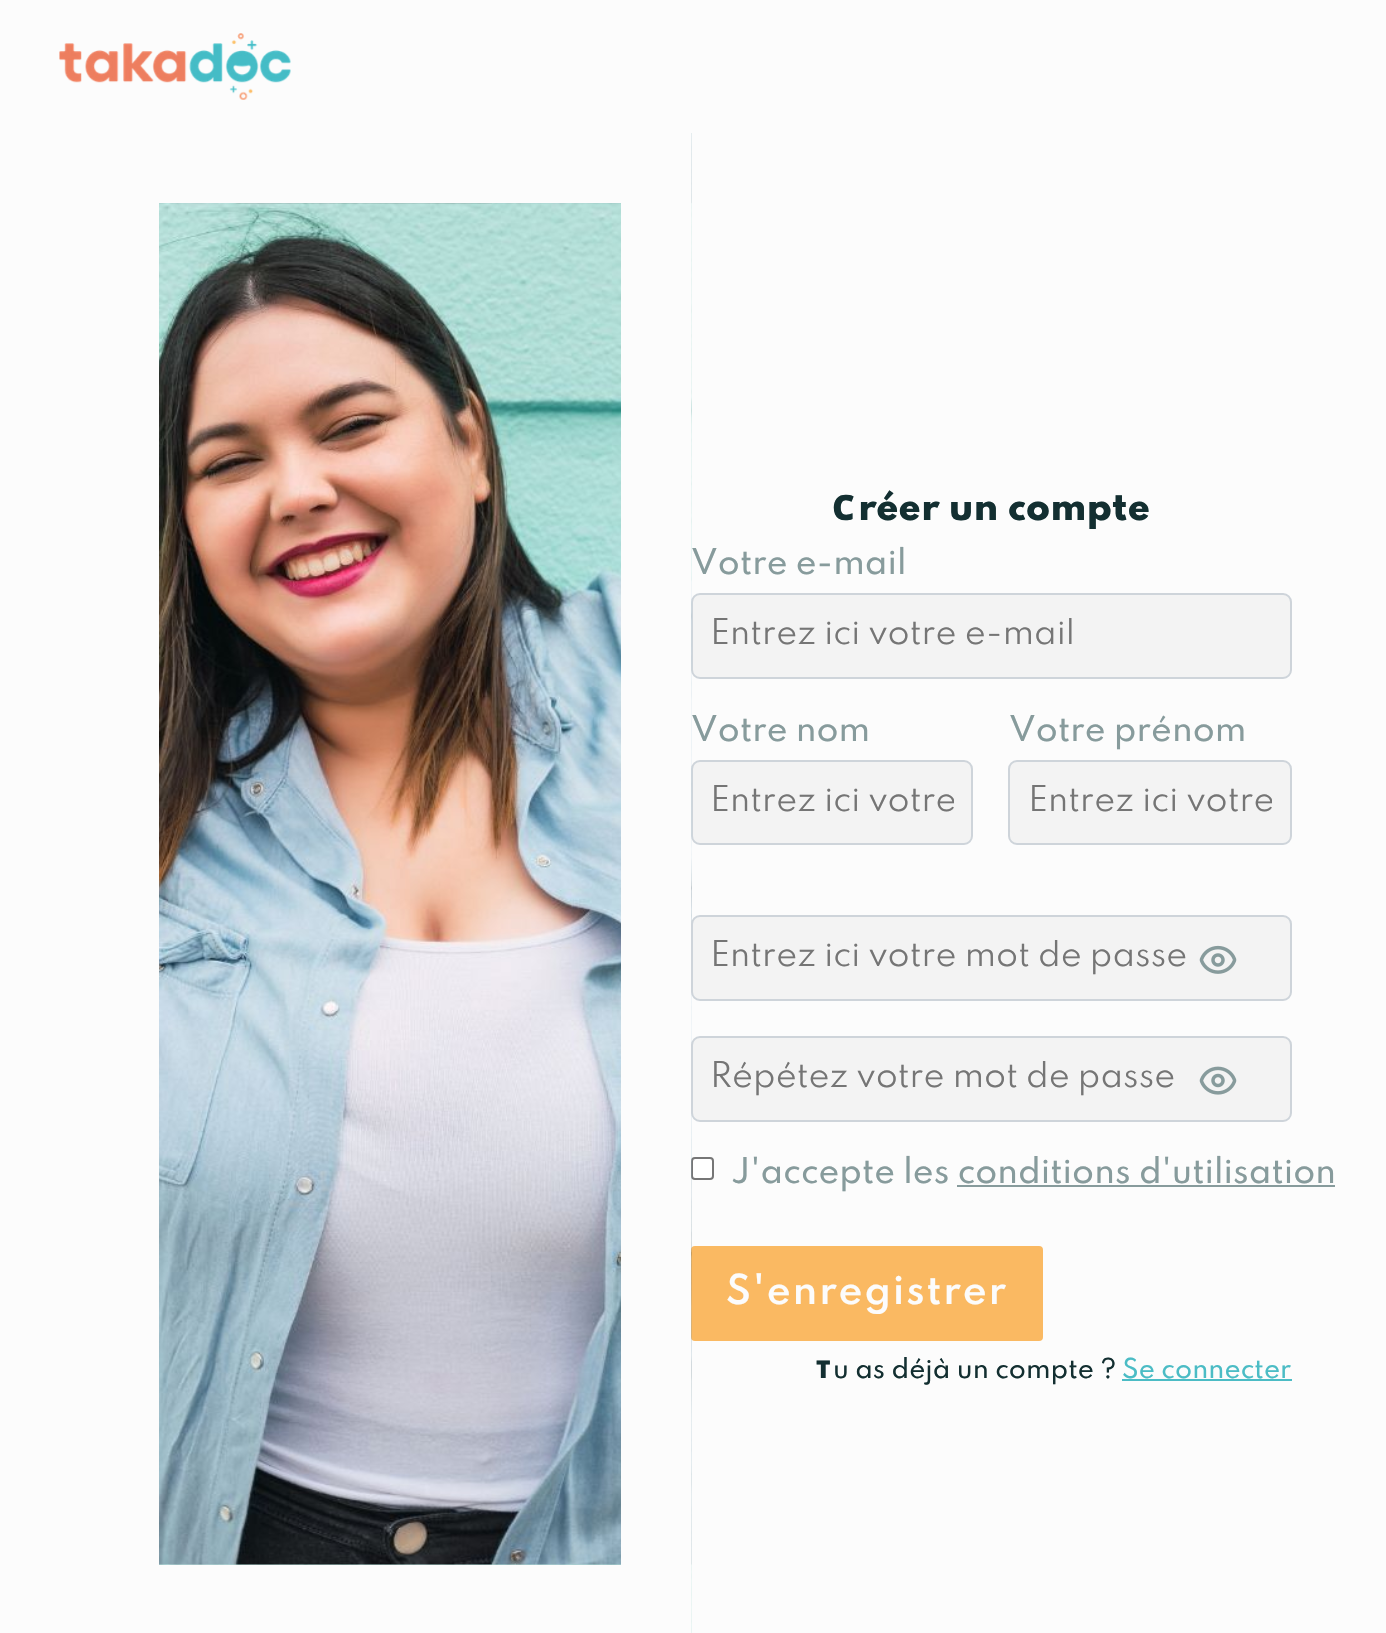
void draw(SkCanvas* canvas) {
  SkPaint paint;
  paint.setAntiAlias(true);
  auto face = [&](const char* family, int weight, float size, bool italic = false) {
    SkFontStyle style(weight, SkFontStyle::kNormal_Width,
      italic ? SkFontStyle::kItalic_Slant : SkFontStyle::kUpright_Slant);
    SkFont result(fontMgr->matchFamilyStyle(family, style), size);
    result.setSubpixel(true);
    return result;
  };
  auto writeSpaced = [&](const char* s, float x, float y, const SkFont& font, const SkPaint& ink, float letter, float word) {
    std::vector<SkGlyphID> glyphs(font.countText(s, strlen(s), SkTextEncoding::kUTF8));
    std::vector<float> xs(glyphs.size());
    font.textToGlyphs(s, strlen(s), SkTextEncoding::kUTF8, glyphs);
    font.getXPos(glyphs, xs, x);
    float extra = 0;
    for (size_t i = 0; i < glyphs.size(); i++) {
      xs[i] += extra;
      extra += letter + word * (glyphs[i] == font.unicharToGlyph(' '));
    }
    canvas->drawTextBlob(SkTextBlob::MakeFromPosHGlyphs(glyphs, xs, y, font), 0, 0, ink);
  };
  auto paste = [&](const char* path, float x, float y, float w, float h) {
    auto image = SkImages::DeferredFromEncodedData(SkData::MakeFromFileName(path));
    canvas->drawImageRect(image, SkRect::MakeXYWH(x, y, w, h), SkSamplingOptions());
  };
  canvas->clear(0xfffcfcfc);
  paste("img/1.png", 59, 33, 232, 67);
  paint.setColor(0xfff3f3f3);
  canvas->drawRoundRect(SkRect::MakeXYWH(692, 594, 599, 84), 8, 8, paint);
  paint.setStroke(true);
  paint.setStrokeWidth(2);
  paint.setColor(0xffced4da);
  canvas->drawRoundRect(SkRect::MakeXYWH(692, 594, 599, 84), 8, 8, paint);
  paint.setStroke(false);
  paint.setColor(0xfff3f3f3);
  canvas->drawRoundRect(SkRect::MakeXYWH(692, 761, 280, 83), 8, 8, paint);
  paint.setStroke(true);
  paint.setColor(0xffced4da);
  canvas->drawRoundRect(SkRect::MakeXYWH(692, 761, 280, 83), 8, 8, paint);
  paint.setStroke(false);
  paint.setColor(0xfff3f3f3);
  canvas->drawRoundRect(SkRect::MakeXYWH(1009, 761, 282, 83), 8, 8, paint);
  paint.setStroke(true);
  paint.setColor(0xffced4da);
  canvas->drawRoundRect(SkRect::MakeXYWH(1009, 761, 282, 83), 8, 8, paint);
  paint.setStroke(false);
  paint.setColor(0xffffffff);
  canvas->drawRoundRect(SkRect::MakeXYWH(692, 1158, 21, 21), 3, 3, paint);
  paint.setStroke(true);
  paint.setColor(0xff767676);
  canvas->drawRoundRect(SkRect::MakeXYWH(692, 1158, 21, 21), 3, 3, paint);
  paint.setStroke(false);
  paint.setColor(0xff879b9c);
  canvas->drawRect(SkRect::MakeXYWH(957, 1185, 378, 2), paint);
  paint.setColor(0xfffab962);
  canvas->drawRoundRect(SkRect::MakeXYWH(691, 1246, 352, 95), 4, 4, paint);
  paint.setColor(0xff4bbcc5);
  canvas->drawRect(SkRect::MakeXYWH(1122, 1379, 170, 2), paint);
  auto f0 = face("Noto Sans", 900, 35);
  paint.setColor(0xff132f31);
  canvas->drawString("C", 832, 520, f0, paint);
  auto f1 = face("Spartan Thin", 800, 35);
  canvas->drawString("réer un compte", 858, 520, f1, paint);
  auto f2 = face("Spartan Thin", 500, 31.5f);
  paint.setColor(0xff879b9c);
  canvas->drawString("Votre e-mail", 691, 574, f2, paint);
  canvas->save();
  canvas->clipRect(SkRect::MakeXYWH(711, 618, 561, 37));
  auto f3 = face("Spartan Thin", 400, 31.5f);
  paint.setColor(0xff757575);
  canvas->drawString("Entrez ici votre e-mail", 710, 644, f3, paint);
  canvas->restore();
  paint.setColor(0xff879b9c);
  canvas->drawString("Votre nom", 691, 741, f2, paint);
  paste("img/2.png", 159, 133, 533, 1500);
  paint.setStroke(true);
  paint.setStrokeWidth(70);
  paint.setColor(0xfffcfcfc);
  canvas->drawRect(SkRect::MakeXYWH(124, 168, 532, 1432), paint);
  canvas->save();
  canvas->clipRect(SkRect::MakeXYWH(711, 784, 243, 37));
  paint.setStroke(false);
  paint.setColor(0xff757575);
  canvas->drawString("Entrez ici votre", 710, 811, f3, paint);
  canvas->restore();
  paint.setColor(0xff879b9c);
  canvas->drawString("Votre prénom", 1009, 741, f2, paint);
  canvas->save();
  canvas->clipRect(SkRect::MakeXYWH(1027, 784, 245, 37));
  paint.setColor(0xff757575);
  canvas->drawString("Entrez ici votre", 1028, 811, f3, paint);
  canvas->restore();
  paint.setColor(0xfff3f3f3);
  canvas->drawRoundRect(SkRect::MakeXYWH(692, 916, 599, 84), 8, 8, paint);
  paint.setStroke(true);
  paint.setStrokeWidth(2);
  paint.setColor(0xffced4da);
  canvas->drawRoundRect(SkRect::MakeXYWH(692, 916, 599, 84), 8, 8, paint);
  canvas->save();
  canvas->clipRect(SkRect::MakeXYWH(711, 940, 561, 37));
  paint.setStroke(false);
  paint.setColor(0xff757575);
  canvas->drawString("Entrez ici votre mot de passe", 710, 966, f3, paint);
  canvas->restore();
  paste("img/3.png", 1199, 945, 38, 29);
  paint.setColor(0xfff3f3f3);
  canvas->drawRoundRect(SkRect::MakeXYWH(692, 1037, 599, 84), 8, 8, paint);
  paint.setStroke(true);
  paint.setColor(0xffced4da);
  canvas->drawRoundRect(SkRect::MakeXYWH(692, 1037, 599, 84), 8, 8, paint);
  canvas->save();
  canvas->clipRect(SkRect::MakeXYWH(711, 1061, 561, 36));
  paint.setStroke(false);
  paint.setColor(0xff757575);
  canvas->drawString("Répétez votre mot de passe", 710, 1087, f3, paint);
  canvas->restore();
  paste("img/4.png", 1199, 1066, 38, 29);
  paint.setColor(0xff879b9c);
  canvas->drawString("J'accepte les conditions d'utilisation", 731, 1183, f2, paint);
  auto f4 = face("Spartan Thin", 600, 36.75f);
  paint.setColor(0xfffcfcfc);
  writeSpaced("S'enregistrer", 726, 1304, f4, paint, 1.75f, 0);
  auto f5 = face("Noto Sans", 900, 24.5f);
  paint.setColor(0xff132f31);
  canvas->drawString("T", 816, 1378, f5, paint);
  auto f6 = face("Spartan Thin", 500, 24.5f);
  canvas->drawString("u as déjà un compte ?", 833, 1378, f6, paint);
  paint.setColor(0xff4bbcc5);
  canvas->drawString("Se connecter", 1122, 1378, f6, paint);
}
